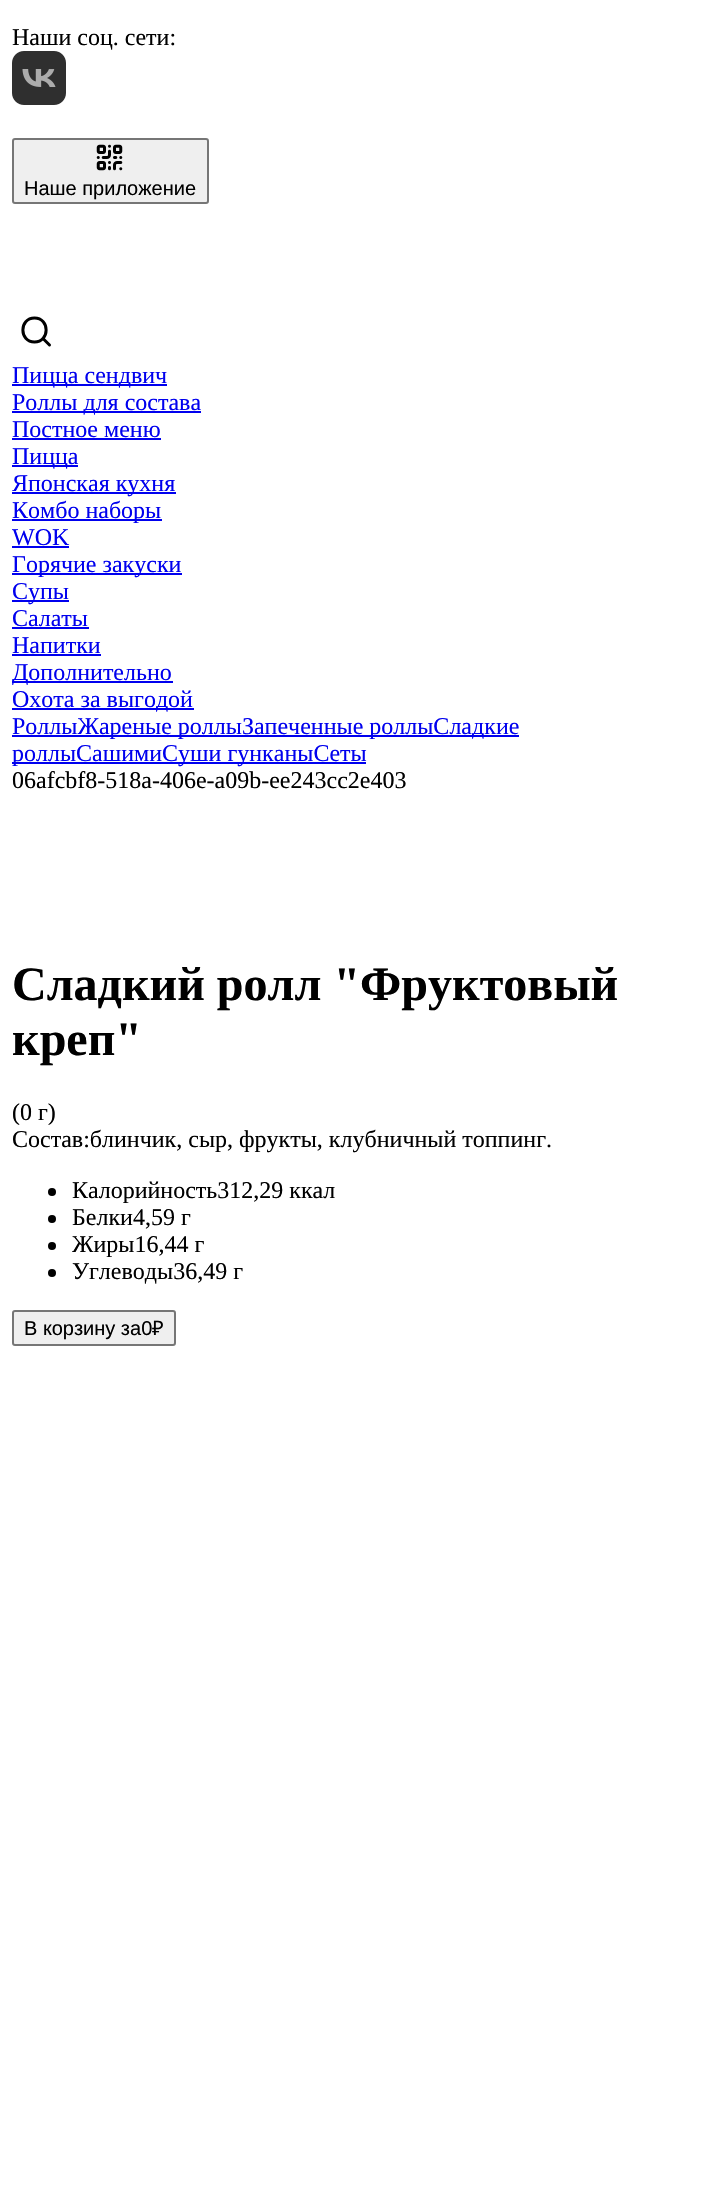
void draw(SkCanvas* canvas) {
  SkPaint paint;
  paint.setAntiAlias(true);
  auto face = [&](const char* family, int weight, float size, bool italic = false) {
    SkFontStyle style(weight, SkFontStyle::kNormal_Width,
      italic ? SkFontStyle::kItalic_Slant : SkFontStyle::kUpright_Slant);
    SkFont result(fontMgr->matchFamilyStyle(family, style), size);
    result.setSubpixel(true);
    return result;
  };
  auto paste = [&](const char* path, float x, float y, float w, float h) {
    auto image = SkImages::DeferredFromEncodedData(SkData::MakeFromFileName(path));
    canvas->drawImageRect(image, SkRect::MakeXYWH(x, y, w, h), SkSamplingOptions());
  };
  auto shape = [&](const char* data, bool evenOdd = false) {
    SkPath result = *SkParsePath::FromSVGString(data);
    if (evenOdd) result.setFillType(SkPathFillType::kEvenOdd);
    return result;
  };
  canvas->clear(0xffffffff);
  paste("img/1.png", 12, 51, 54, 54);
  paint.setColor(0xffefefef);
  canvas->drawRoundRect(SkRect::MakeXYWH(13, 139, 195, 64), 2, 2, paint);
  paint.setStroke(true);
  paint.setStrokeWidth(2);
  paint.setColor(0xff767676);
  canvas->drawRoundRect(SkRect::MakeXYWH(13, 139, 195, 64), 2, 2, paint);
  paste("img/2.png", 96, 144, 27, 27);
  paint.setStrokeWidth(3);
  paint.setStrokeCap(SkPaint::kRound_Cap);
  paint.setStrokeJoin(SkPaint::kRound_Join);
  paint.setColor(0xff000000);
  canvas->drawPath(shape("M34.5 342C50 342 50 318 34.5 318C19 318 19 342 34.5 342ZM49.5 345L43 338.5"), paint);
  paint.setStroke(false);
  {
    const struct { float x, y, w, h; SkColor color; } items[] = {
      {12, 384, 155, 2, 0xff0000ee},
      {12, 411, 189, 2, 0xff0000ee},
      {12, 438, 149, 2, 0xff0000ee},
      {12, 465, 66, 2, 0xff0000ee},
      {12, 492, 164, 2, 0xff0000ee},
      {12, 519, 150, 2, 0xff0000ee},
      {12, 546, 57, 2, 0xff0000ee},
      {12, 573, 170, 2, 0xff0000ee},
      {12, 600, 57, 2, 0xff0000ee},
      {12, 627, 77, 2, 0xff0000ee},
      {12, 654, 89, 2, 0xff0000ee},
      {12, 681, 161, 2, 0xff0000ee},
      {12, 708, 182, 2, 0xff0000ee},
      {12, 735, 507, 2, 0xff0000ee},
      {12, 762, 354, 2, 0xff0000ee},
    };
    for (auto [x, y, w, h, color] : items) {
      paint.setColor(color);
      canvas->drawRect(SkRect::MakeXYWH(x, y, w, h), paint);
    }
  }
  paint.setColor(0xff000000);
  canvas->drawCircle(52, 1192, 4, paint);
  canvas->drawCircle(52, 1219, 4, paint);
  canvas->drawCircle(52, 1246, 4, paint);
  canvas->drawCircle(52, 1273, 4, paint);
  paint.setColor(0xffefefef);
  canvas->drawRoundRect(SkRect::MakeXYWH(13, 1311, 162, 34), 2, 2, paint);
  paint.setStroke(true);
  paint.setStrokeWidth(2);
  paint.setStrokeCap(SkPaint::kButt_Cap);
  paint.setStrokeJoin(SkPaint::kMiter_Join);
  paint.setColor(0xff767676);
  canvas->drawRoundRect(SkRect::MakeXYWH(13, 1311, 162, 34), 2, 2, paint);
  auto f0 = face("Liberation Serif", 400, 24);
  paint.setStroke(false);
  paint.setColor(0xff000000);
  canvas->drawString("Наши соц. сети:", 12, 45, f0, paint);
  auto f1 = face("Liberation Sans", 400, 20);
  canvas->drawString("Наше приложение", 24, 195, f1, paint);
  paint.setColor(0xff0000ee);
  {
    const struct { const char* s; float x, y; } items[] = {
      {"Пицца сендвич", 12, 383},
      {"Роллы для состава", 12, 410},
      {"Постное меню", 12, 437},
      {"Пицца", 12, 464},
      {"Японская кухня", 12, 491},
      {"Комбо наборы", 12, 518},
      {"WOK", 12, 545},
      {"Горячие закуски", 12, 572},
      {"Супы", 12, 599},
      {"Салаты", 12, 626},
      {"Напитки", 12, 653},
      {"Дополнительно", 12, 680},
      {"Охота за выгодой", 12, 707},
      {"РоллыЖареные роллыЗапеченные роллыСладкие", 12, 734},
      {"роллыСашимиСуши гунканыСеты", 12, 761},
    };
    for (auto [s, x, y] : items) {
      canvas->drawString(s, x, y, f0, paint);
    }
  }
  paint.setColor(0xff000000);
  canvas->drawString("06afcbf8-518a-406e-a09b-ee243cc2e403", 12, 788, f0, paint);
  auto f2 = face("Liberation Serif", 700, 48);
  canvas->drawString("Сладкий ролл \"Фруктовый", 12, 1000, f2, paint);
  canvas->drawString("креп\"", 12, 1055, f2, paint);
  {
    const struct { const char* s; float x, y; } items[] = {
      {"(0 г)", 12, 1120},
      {"Состав:блинчик, сыр, фрукты, клубничный топпинг.", 12, 1147},
      {"Калорийность312,29 ккал", 72, 1198},
      {"Белки4,59 г", 72, 1225},
      {"Жиры16,44 г", 72, 1252},
      {"Углеводы36,49 г", 72, 1279},
    };
    for (auto [s, x, y] : items) {
      canvas->drawString(s, x, y, f0, paint);
    }
  }
  canvas->drawString("В корзину за0", 24, 1335, f1, paint);
  auto f3 = face("Noto Sans", 400, 20);
  canvas->drawString("₽", 152, 1335, f3, paint);
}
